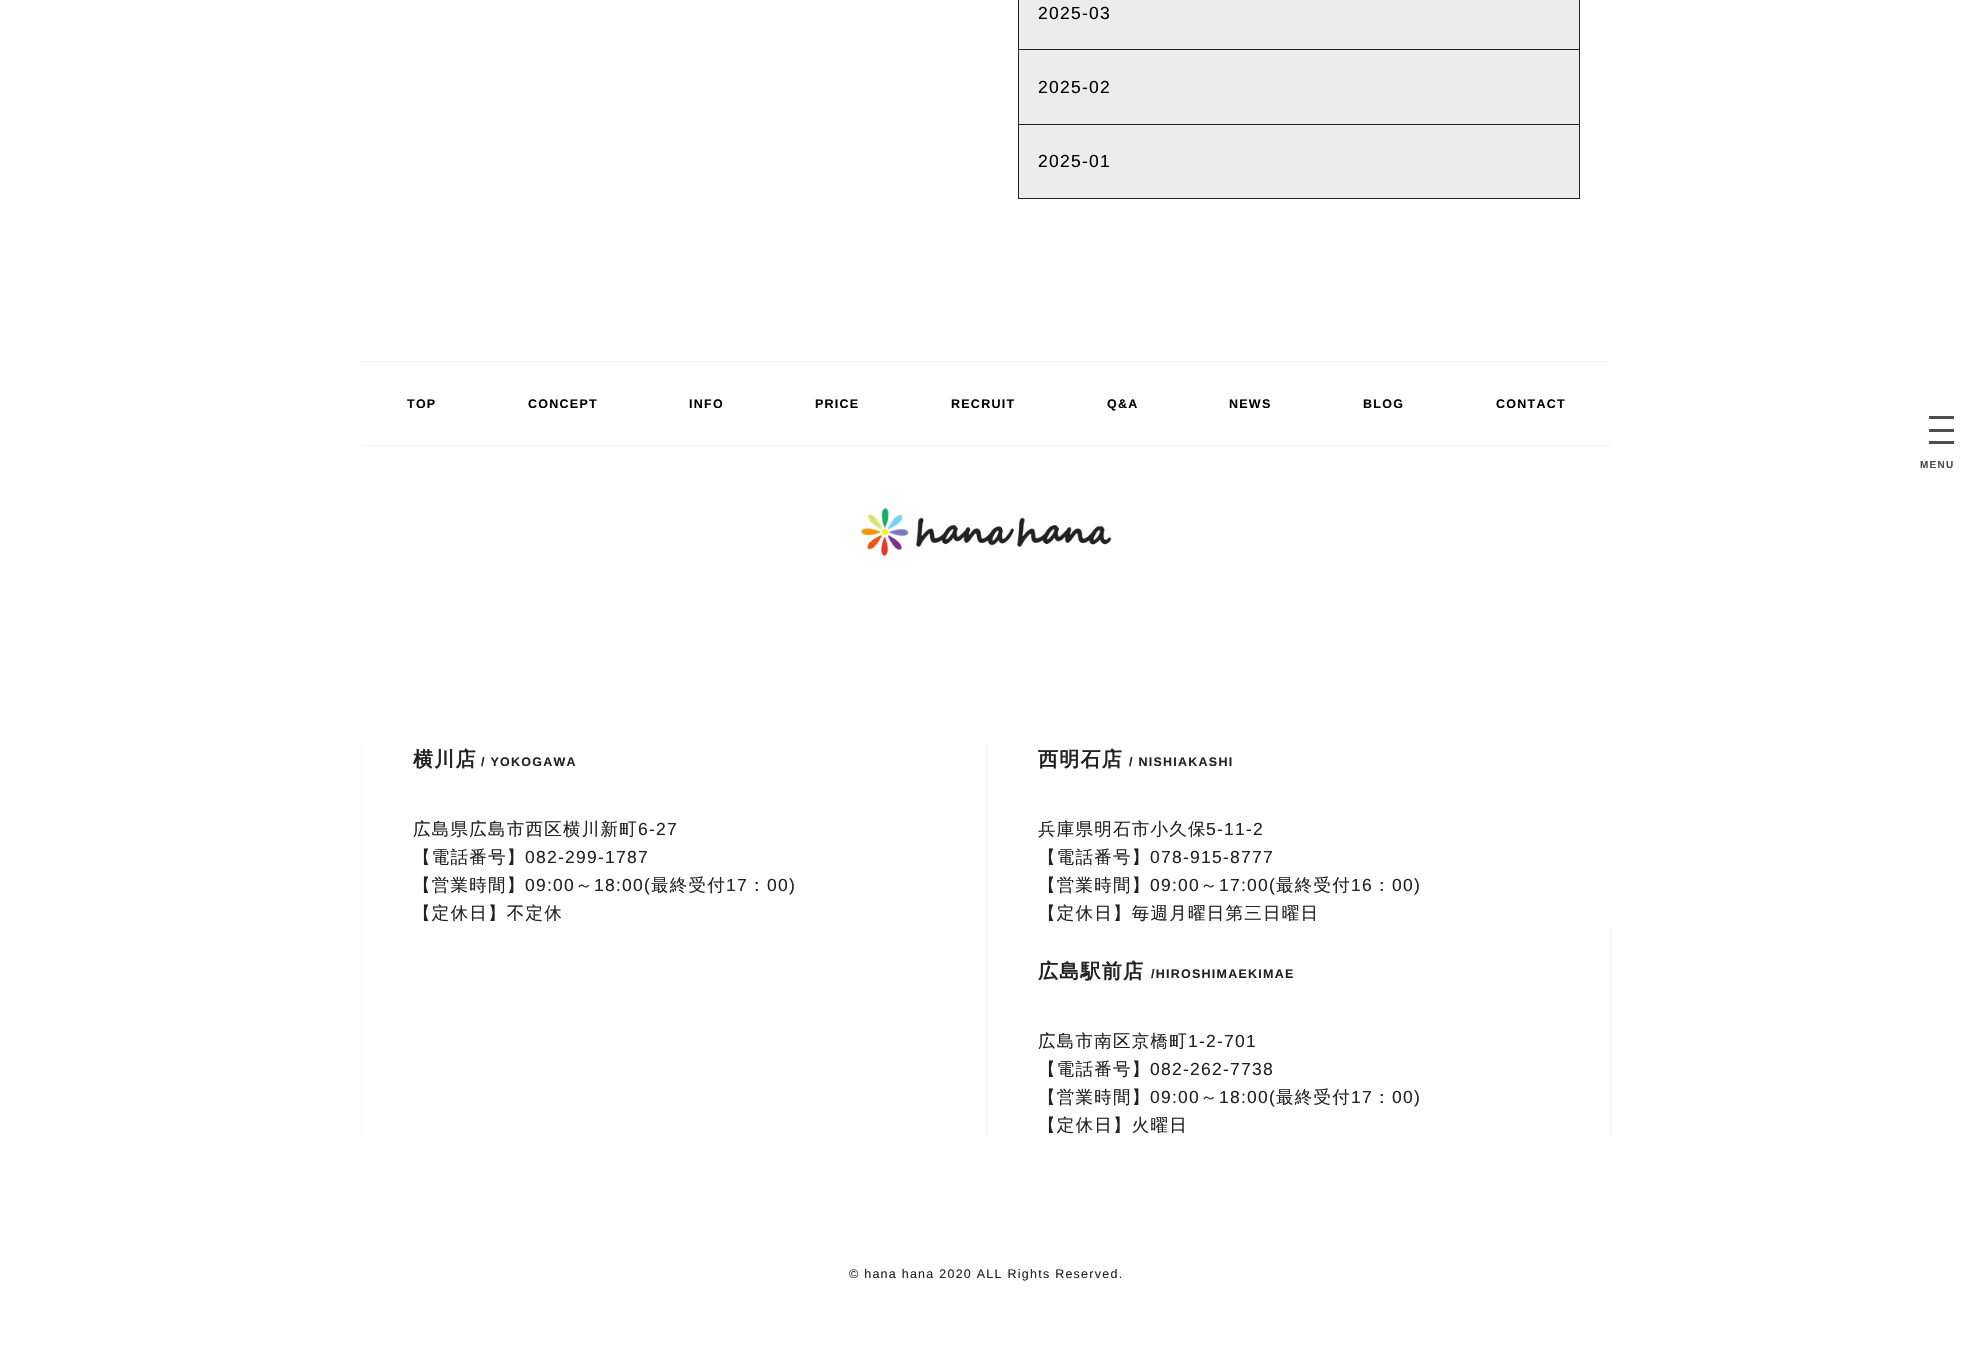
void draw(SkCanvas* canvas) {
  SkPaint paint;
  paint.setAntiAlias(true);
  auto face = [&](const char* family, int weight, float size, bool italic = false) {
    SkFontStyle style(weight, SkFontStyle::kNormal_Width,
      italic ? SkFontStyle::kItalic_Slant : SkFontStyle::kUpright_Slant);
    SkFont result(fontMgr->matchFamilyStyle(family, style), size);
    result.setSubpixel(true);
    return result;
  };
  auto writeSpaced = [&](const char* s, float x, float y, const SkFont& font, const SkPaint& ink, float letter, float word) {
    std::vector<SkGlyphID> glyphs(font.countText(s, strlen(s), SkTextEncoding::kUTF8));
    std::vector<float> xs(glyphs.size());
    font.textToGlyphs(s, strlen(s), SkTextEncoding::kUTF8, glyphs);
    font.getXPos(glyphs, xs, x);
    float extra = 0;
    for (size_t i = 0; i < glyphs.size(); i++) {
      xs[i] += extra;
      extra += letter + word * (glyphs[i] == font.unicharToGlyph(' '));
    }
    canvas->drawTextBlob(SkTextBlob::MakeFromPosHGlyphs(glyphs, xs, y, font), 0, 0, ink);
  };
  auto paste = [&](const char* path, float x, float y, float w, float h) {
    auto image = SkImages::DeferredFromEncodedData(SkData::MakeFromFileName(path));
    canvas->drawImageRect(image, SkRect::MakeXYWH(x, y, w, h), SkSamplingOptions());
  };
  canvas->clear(0xffffffff);
  {
    const struct { float x, y, w, h; SkColor color; } items[] = {
      {1579, 0, 1, 199, 0xff222222},
      {1018, 0, 1, 199, 0xff222222},
      {1019, 0, 560, 49, 0xffececec},
      {1019, 49, 560, 1, 0xff222222},
      {1019, 50, 560, 74, 0xffececec},
      {1019, 124, 560, 1, 0xff222222},
      {1019, 125, 560, 73, 0xffececec},
      {1019, 198, 560, 1, 0xff222222},
      {361, 361, 1250, 1, 0xfff5f5f5},
      {361, 445, 1250, 1, 0xfff5f5f5},
    };
    for (auto [x, y, w, h, color] : items) {
      paint.setColor(color);
      canvas->drawRect(SkRect::MakeXYWH(x, y, w, h), paint);
    }
  }
  paste("img/1.png", 861, 508, 251, 48);
  {
    const struct { float x, y, w, h; SkColor color; } items[] = {
      {361, 744, 1, 395, 0xfff5f5f5},
      {986, 744, 1, 395, 0xfff5f5f5},
      {1610, 928, 1, 211, 0xfff5f5f5},
      {1929, 429, 25, 3, 0xff4e4e4e},
      {1929, 416, 25, 3, 0xff4e4e4e},
      {1929, 441, 25, 3, 0xff4e4e4e},
    };
    for (auto [x, y, w, h, color] : items) {
      paint.setColor(color);
      canvas->drawRect(SkRect::MakeXYWH(x, y, w, h), paint);
    }
  }
  auto f0 = face("Liberation Sans", 400, 17.5f);
  paint.setColor(0xff000000);
  {
    const struct { const char* s; float x, y; } items[] = {
      {"2025-03", 1038, 19},
      {"2025-02", 1038, 93},
      {"2025-01", 1038, 167},
    };
    for (auto [s, x, y] : items) {
      writeSpaced(s, x, y, f0, paint, 1.25f, 0);
    }
  }
  auto f1 = face("Liberation Sans", 700, 12.5f);
  {
    const struct { const char* s; float x, y; } items[] = {
      {"TOP", 407, 408},
      {"CONCEPT", 528, 408},
      {"INFO", 689, 408},
      {"PRICE", 815, 408},
      {"RECRUIT", 951, 408},
      {"Q&A", 1107, 408},
      {"NEWS", 1229, 408},
      {"BLOG", 1363, 408},
      {"CONTACT", 1496, 408},
    };
    for (auto [s, x, y] : items) {
      writeSpaced(s, x, y, f1, paint, 1.25f, 0);
    }
  }
  auto f2 = face("WenQuanYi Zen Hei", 700, 20);
  paint.setColor(0xff222222);
  writeSpaced("横川店", 413, 766, f2, paint, 1.25f, 0);
  writeSpaced("/ YOKOGAWA", 481, 766, f1, paint, 1.25f, 0);
  auto f3 = face("WenQuanYi Zen Hei", 500, 17.5f);
  writeSpaced("広島県広島市西区横川新町", 413, 835, f3, paint, 1.25f, 0);
  writeSpaced("6-27", 638, 835, f0, paint, 1.25f, 0);
  writeSpaced("【電話番号】", 413, 863, f3, paint, 1.25f, 0);
  writeSpaced("082-299-1787", 525, 863, f0, paint, 1.25f, 0);
  writeSpaced("【営業時間】", 413, 891, f3, paint, 1.25f, 0);
  writeSpaced("09:00", 525, 891, f0, paint, 1.25f, 0);
  writeSpaced("～", 575, 891, f3, paint, 1.25f, 0);
  writeSpaced("18:00(", 594, 891, f0, paint, 1.25f, 0);
  writeSpaced("最終受付", 651, 891, f3, paint, 1.25f, 0);
  writeSpaced("17", 726, 891, f0, paint, 1.25f, 0);
  writeSpaced("：", 748, 891, f3, paint, 1.25f, 0);
  writeSpaced("00)", 767, 891, f0, paint, 1.25f, 0);
  writeSpaced("【定休日】不定休", 413, 919, f3, paint, 1.25f, 0);
  writeSpaced("西明石店", 1038, 766, f2, paint, 1.25f, 0);
  writeSpaced("/ NISHIAKASHI", 1129, 766, f1, paint, 1.25f, 0);
  writeSpaced("兵庫県明石市小久保", 1038, 835, f3, paint, 1.25f, 0);
  writeSpaced("5-11-2", 1206, 835, f0, paint, 1.25f, 0);
  writeSpaced("【電話番号】", 1038, 863, f3, paint, 1.25f, 0);
  writeSpaced("078-915-8777", 1150, 863, f0, paint, 1.25f, 0);
  writeSpaced("【営業時間】", 1038, 891, f3, paint, 1.25f, 0);
  writeSpaced("09:00", 1150, 891, f0, paint, 1.25f, 0);
  writeSpaced("～", 1200, 891, f3, paint, 1.25f, 0);
  writeSpaced("17:00(", 1219, 891, f0, paint, 1.25f, 0);
  writeSpaced("最終受付", 1276, 891, f3, paint, 1.25f, 0);
  writeSpaced("16", 1351, 891, f0, paint, 1.25f, 0);
  writeSpaced("：", 1373, 891, f3, paint, 1.25f, 0);
  writeSpaced("00)", 1392, 891, f0, paint, 1.25f, 0);
  writeSpaced("【定休日】毎週月曜日第三日曜日", 1038, 919, f3, paint, 1.25f, 0);
  writeSpaced("広島駅前店", 1038, 978, f2, paint, 1.25f, 0);
  writeSpaced("/HIROSHIMAEKIMAE", 1151, 978, f1, paint, 1.25f, 0);
  writeSpaced("広島市南区京橋町", 1038, 1047, f3, paint, 1.25f, 0);
  writeSpaced("1-2-701", 1188, 1047, f0, paint, 1.25f, 0);
  writeSpaced("【電話番号】", 1038, 1075, f3, paint, 1.25f, 0);
  writeSpaced("082-262-7738", 1150, 1075, f0, paint, 1.25f, 0);
  writeSpaced("【営業時間】", 1038, 1103, f3, paint, 1.25f, 0);
  writeSpaced("09:00", 1150, 1103, f0, paint, 1.25f, 0);
  writeSpaced("～", 1200, 1103, f3, paint, 1.25f, 0);
  writeSpaced("18:00(", 1219, 1103, f0, paint, 1.25f, 0);
  writeSpaced("最終受付", 1276, 1103, f3, paint, 1.25f, 0);
  writeSpaced("17", 1351, 1103, f0, paint, 1.25f, 0);
  writeSpaced("：", 1373, 1103, f3, paint, 1.25f, 0);
  writeSpaced("00)", 1392, 1103, f0, paint, 1.25f, 0);
  writeSpaced("【定休日】火曜日", 1038, 1131, f3, paint, 1.25f, 0);
  auto f4 = face("Liberation Sans", 400, 12.5f);
  writeSpaced("© hana hana 2020 ALL Rights Reserved.", 849, 1278, f4, paint, 1.25f, 0);
  auto f5 = face("Liberation Sans", 700, 10);
  paint.setColor(0xff4e4e4e);
  writeSpaced("MENU", 1920, 468, f5, paint, 1.25f, 0);
}
